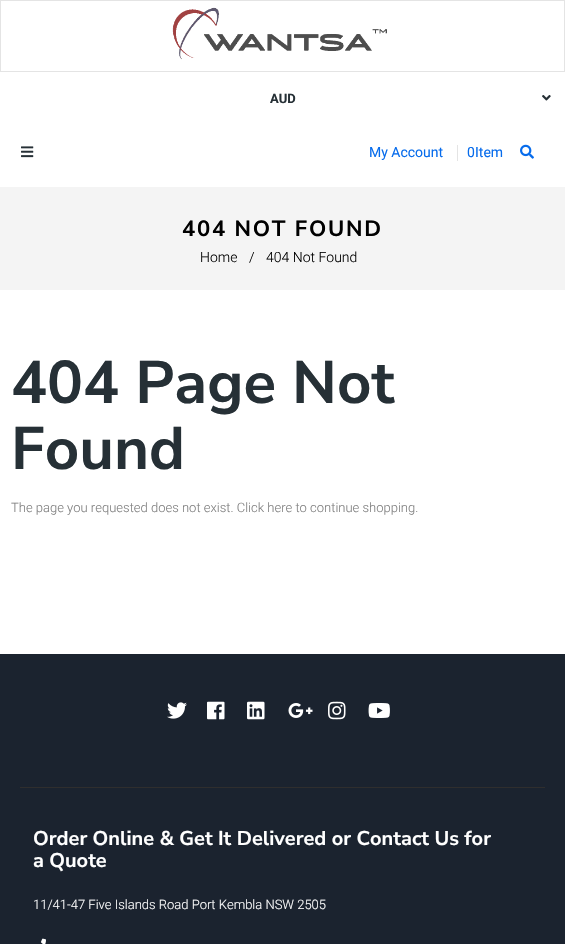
void draw(SkCanvas* canvas) {
  SkPaint paint;
  paint.setAntiAlias(true);
  auto face = [&](const char* family, int weight, float size, bool italic = false) {
    SkFontStyle style(weight, SkFontStyle::kNormal_Width,
      italic ? SkFontStyle::kItalic_Slant : SkFontStyle::kUpright_Slant);
    SkFont result(fontMgr->matchFamilyStyle(family, style), size);
    result.setSubpixel(true);
    return result;
  };
  auto writeSpaced = [&](const char* s, float x, float y, const SkFont& font, const SkPaint& ink, float letter, float word) {
    std::vector<SkGlyphID> glyphs(font.countText(s, strlen(s), SkTextEncoding::kUTF8));
    std::vector<float> xs(glyphs.size());
    font.textToGlyphs(s, strlen(s), SkTextEncoding::kUTF8, glyphs);
    font.getXPos(glyphs, xs, x);
    float extra = 0;
    for (size_t i = 0; i < glyphs.size(); i++) {
      xs[i] += extra;
      extra += letter + word * (glyphs[i] == font.unicharToGlyph(' '));
    }
    canvas->drawTextBlob(SkTextBlob::MakeFromPosHGlyphs(glyphs, xs, y, font), 0, 0, ink);
  };
  auto paste = [&](const char* path, float x, float y, float w, float h) {
    auto image = SkImages::DeferredFromEncodedData(SkData::MakeFromFileName(path));
    canvas->drawImageRect(image, SkRect::MakeXYWH(x, y, w, h), SkSamplingOptions());
  };
  canvas->clear(0xffffffff);
  paint.setStroke(true);
  paint.setStrokeWidth(1);
  paint.setColor(0xffe4e4e4);
  canvas->drawRect(SkRect::MakeXYWH(0.5f, 0.5f, 564, 71), paint);
  paste("img/1.png", 172, 7, 215, 53);
  paste("img/2.png", 542, 95, 9, 6);
  paste("img/3.png", 21, 146, 13, 12);
  paint.setStroke(false);
  canvas->drawRect(SkRect::MakeXYWH(457, 145, 1, 16), paint);
  paste("img/4.png", 520, 144, 14, 15);
  {
    const struct { float x, y, w, h; SkColor color; } items[] = {
      {0, 187, 565, 103, 0xfff4f4f4},
      {0, 654, 565, 290, 0xff1b232f},
      {20, 787, 525, 1, 0xff2f2e2e},
    };
    for (auto [x, y, w, h, color] : items) {
      paint.setColor(color);
      canvas->drawRect(SkRect::MakeXYWH(x, y, w, h), paint);
    }
  }
  paste("img/5.png", 167, 702, 20, 17);
  paste("img/6.png", 207, 701, 18, 19);
  paste("img/7.png", 247, 701, 18, 19);
  paste("img/8.png", 288, 703, 25, 15);
  paste("img/9.png", 328, 701, 18, 19);
  paste("img/10.png", 368, 703, 22, 15);
  paste("img/11.png", 41, 938, 5, 6);
  auto f0 = face("Roboto", 700, 13);
  paint.setColor(0xff263036);
  canvas->drawString("AUD", 270, 103, f0, paint);
  auto f1 = face("Roboto", 400, 14);
  paint.setColor(0xff076cec);
  {
    const struct { const char* s; float x, y; } items[] = {
      {"My Account", 369, 157},
      {"0", 467, 157},
      {"Item", 475, 157},
    };
    for (auto [s, x, y] : items) {
      canvas->drawString(s, x, y, f1, paint);
    }
  }
  auto f2 = face("Nunito Sans", 700, 22);
  paint.setColor(0xff000000);
  writeSpaced("404 NOT FOUND", 182, 236, f2, paint, 1.75f, 0);
  auto f3 = face("Roboto", 300, 14);
  {
    const struct { const char* s; float x, y; } items[] = {
      {"Home", 200, 262},
      {"/", 249, 262},
      {"404 Not Found", 266, 262},
    };
    for (auto [s, x, y] : items) {
      canvas->drawString(s, x, y, f3, paint);
    }
  }
  auto f4 = face("Nunito Sans", 700, 60);
  paint.setColor(0xff263036);
  canvas->drawString("404 Page Not", 11, 403, f4, paint);
  canvas->drawString("Found", 11, 469, f4, paint);
  auto f5 = face("Roboto", 300, 13);
  paint.setColor(0xff808080);
  canvas->drawString("The page you requested does not exist. Click here to continue shopping.", 11, 512, f5, paint);
  auto f6 = face("Nunito Sans", 700, 20);
  paint.setColor(0xffffffff);
  canvas->drawString("Order Online & Get It Delivered or Contact Us for", 33, 845, f6, paint);
  canvas->drawString("a Quote", 33, 867, f6, paint);
  canvas->drawString("11/41-47 Five Islands Road Port Kembla NSW 2505", 33, 909, f5, paint);
}
